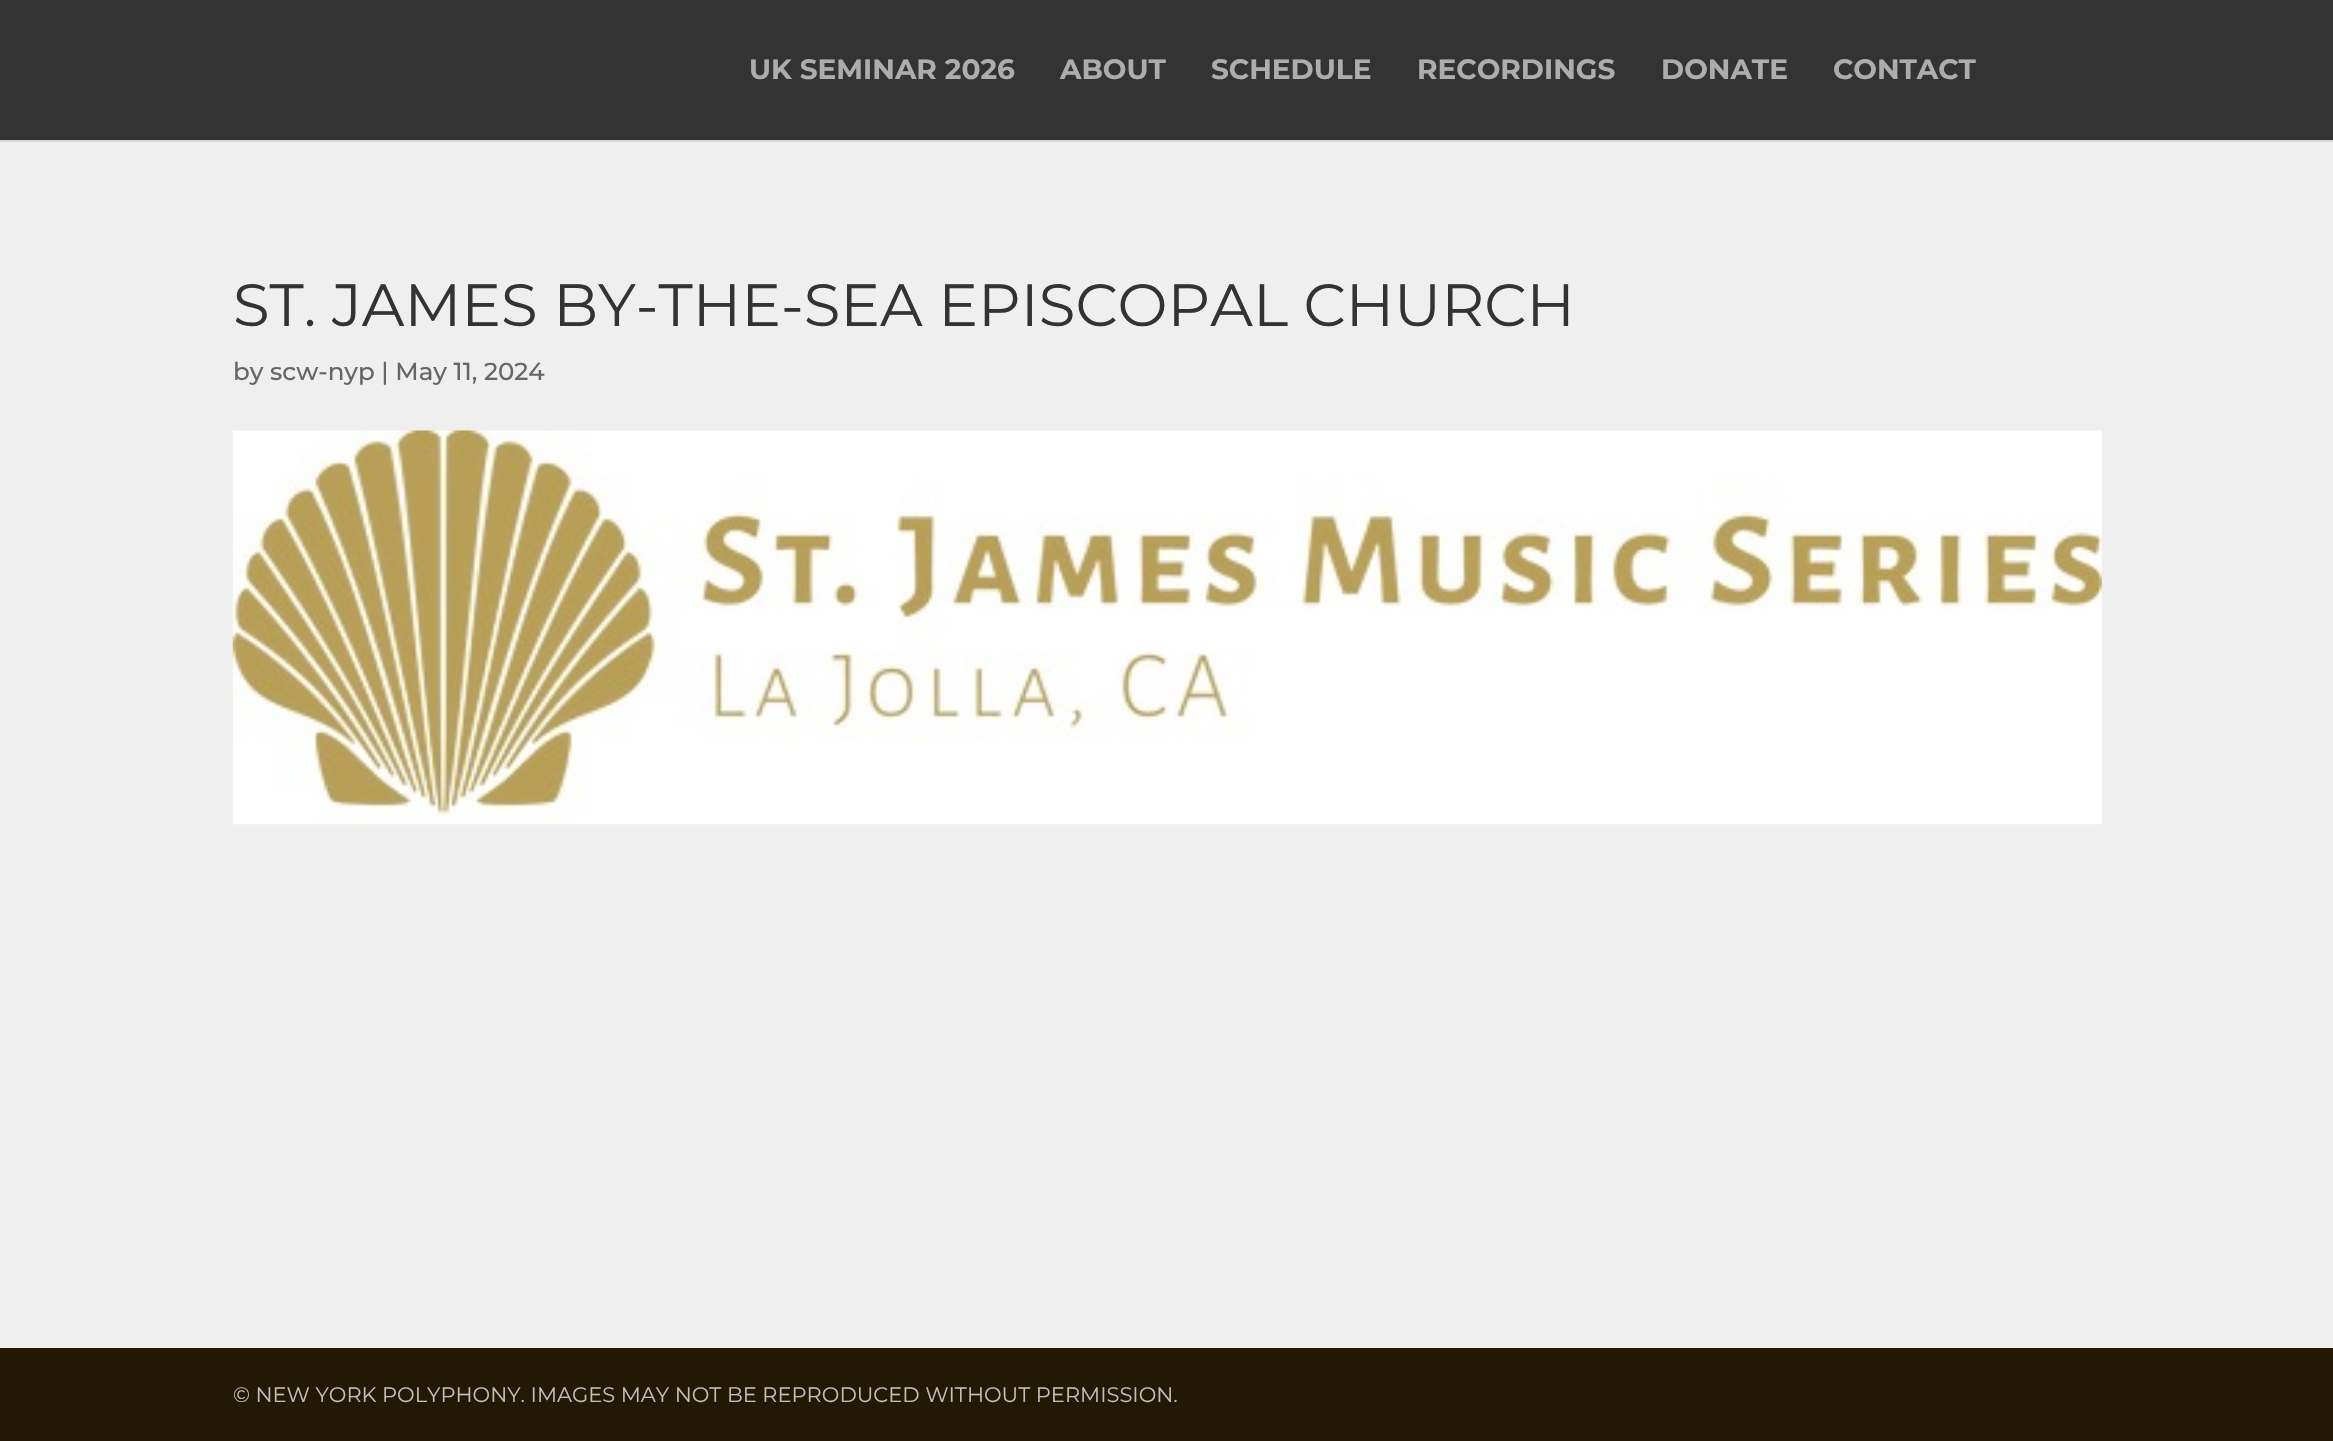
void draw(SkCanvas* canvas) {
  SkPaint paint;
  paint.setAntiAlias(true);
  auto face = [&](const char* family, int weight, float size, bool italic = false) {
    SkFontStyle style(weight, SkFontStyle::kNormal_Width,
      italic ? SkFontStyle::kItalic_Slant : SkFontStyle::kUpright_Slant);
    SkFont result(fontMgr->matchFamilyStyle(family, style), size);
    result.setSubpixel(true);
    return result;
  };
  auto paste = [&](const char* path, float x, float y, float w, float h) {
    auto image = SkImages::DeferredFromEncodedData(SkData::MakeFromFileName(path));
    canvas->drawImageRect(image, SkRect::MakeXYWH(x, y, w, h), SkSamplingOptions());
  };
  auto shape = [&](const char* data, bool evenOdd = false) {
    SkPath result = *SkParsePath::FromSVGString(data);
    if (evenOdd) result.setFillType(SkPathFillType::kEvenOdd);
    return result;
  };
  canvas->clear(0xffefefef);
  paint.setColor(0xffd7d7d7);
  canvas->drawPath(shape("M0 140V142H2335V2H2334V140Z"), paint);
  paint.setColor(0xff333333);
  canvas->drawRect(SkRect::MakeXYWH(0, 0, 2333, 140), paint);
  paste("img/1.png", 232, 430, 1870, 395);
  paint.setColor(0xff221904);
  canvas->drawRect(SkRect::MakeXYWH(0, 1348, 2333, 93), paint);
  auto f0 = face("Montserrat", 700, 28);
  paint.setColor(0xffadadad);
  {
    const struct { const char* s; float x, y; } items[] = {
      {"UK SEMINAR 2026", 749, 79},
      {"ABOUT", 1060, 79},
      {"SCHEDULE", 1211, 79},
      {"RECORDINGS", 1417, 79},
      {"DONATE", 1661, 79},
      {"CONTACT", 1833, 79},
    };
    for (auto [s, x, y] : items) {
      canvas->drawString(s, x, y, f0, paint);
    }
  }
  auto f1 = face("Montserrat", 400, 59.5f);
  paint.setColor(0xff333333);
  canvas->drawString("ST. JAMES BY-THE-SEA EPISCOPAL CHURCH", 233, 326, f1, paint);
  auto f2 = face("Montserrat", 500, 24.5f);
  paint.setColor(0xff666666);
  canvas->drawString("by scw-nyp | May 11, 2024", 233, 380, f2, paint);
  auto f3 = face("Montserrat", 400, 21);
  paint.setColor(0xffc1bfb9);
  canvas->drawString("© NEW YORK POLYPHONY. IMAGES MAY NOT BE REPRODUCED WITHOUT PERMISSION.", 233, 1402, f3, paint);
}
